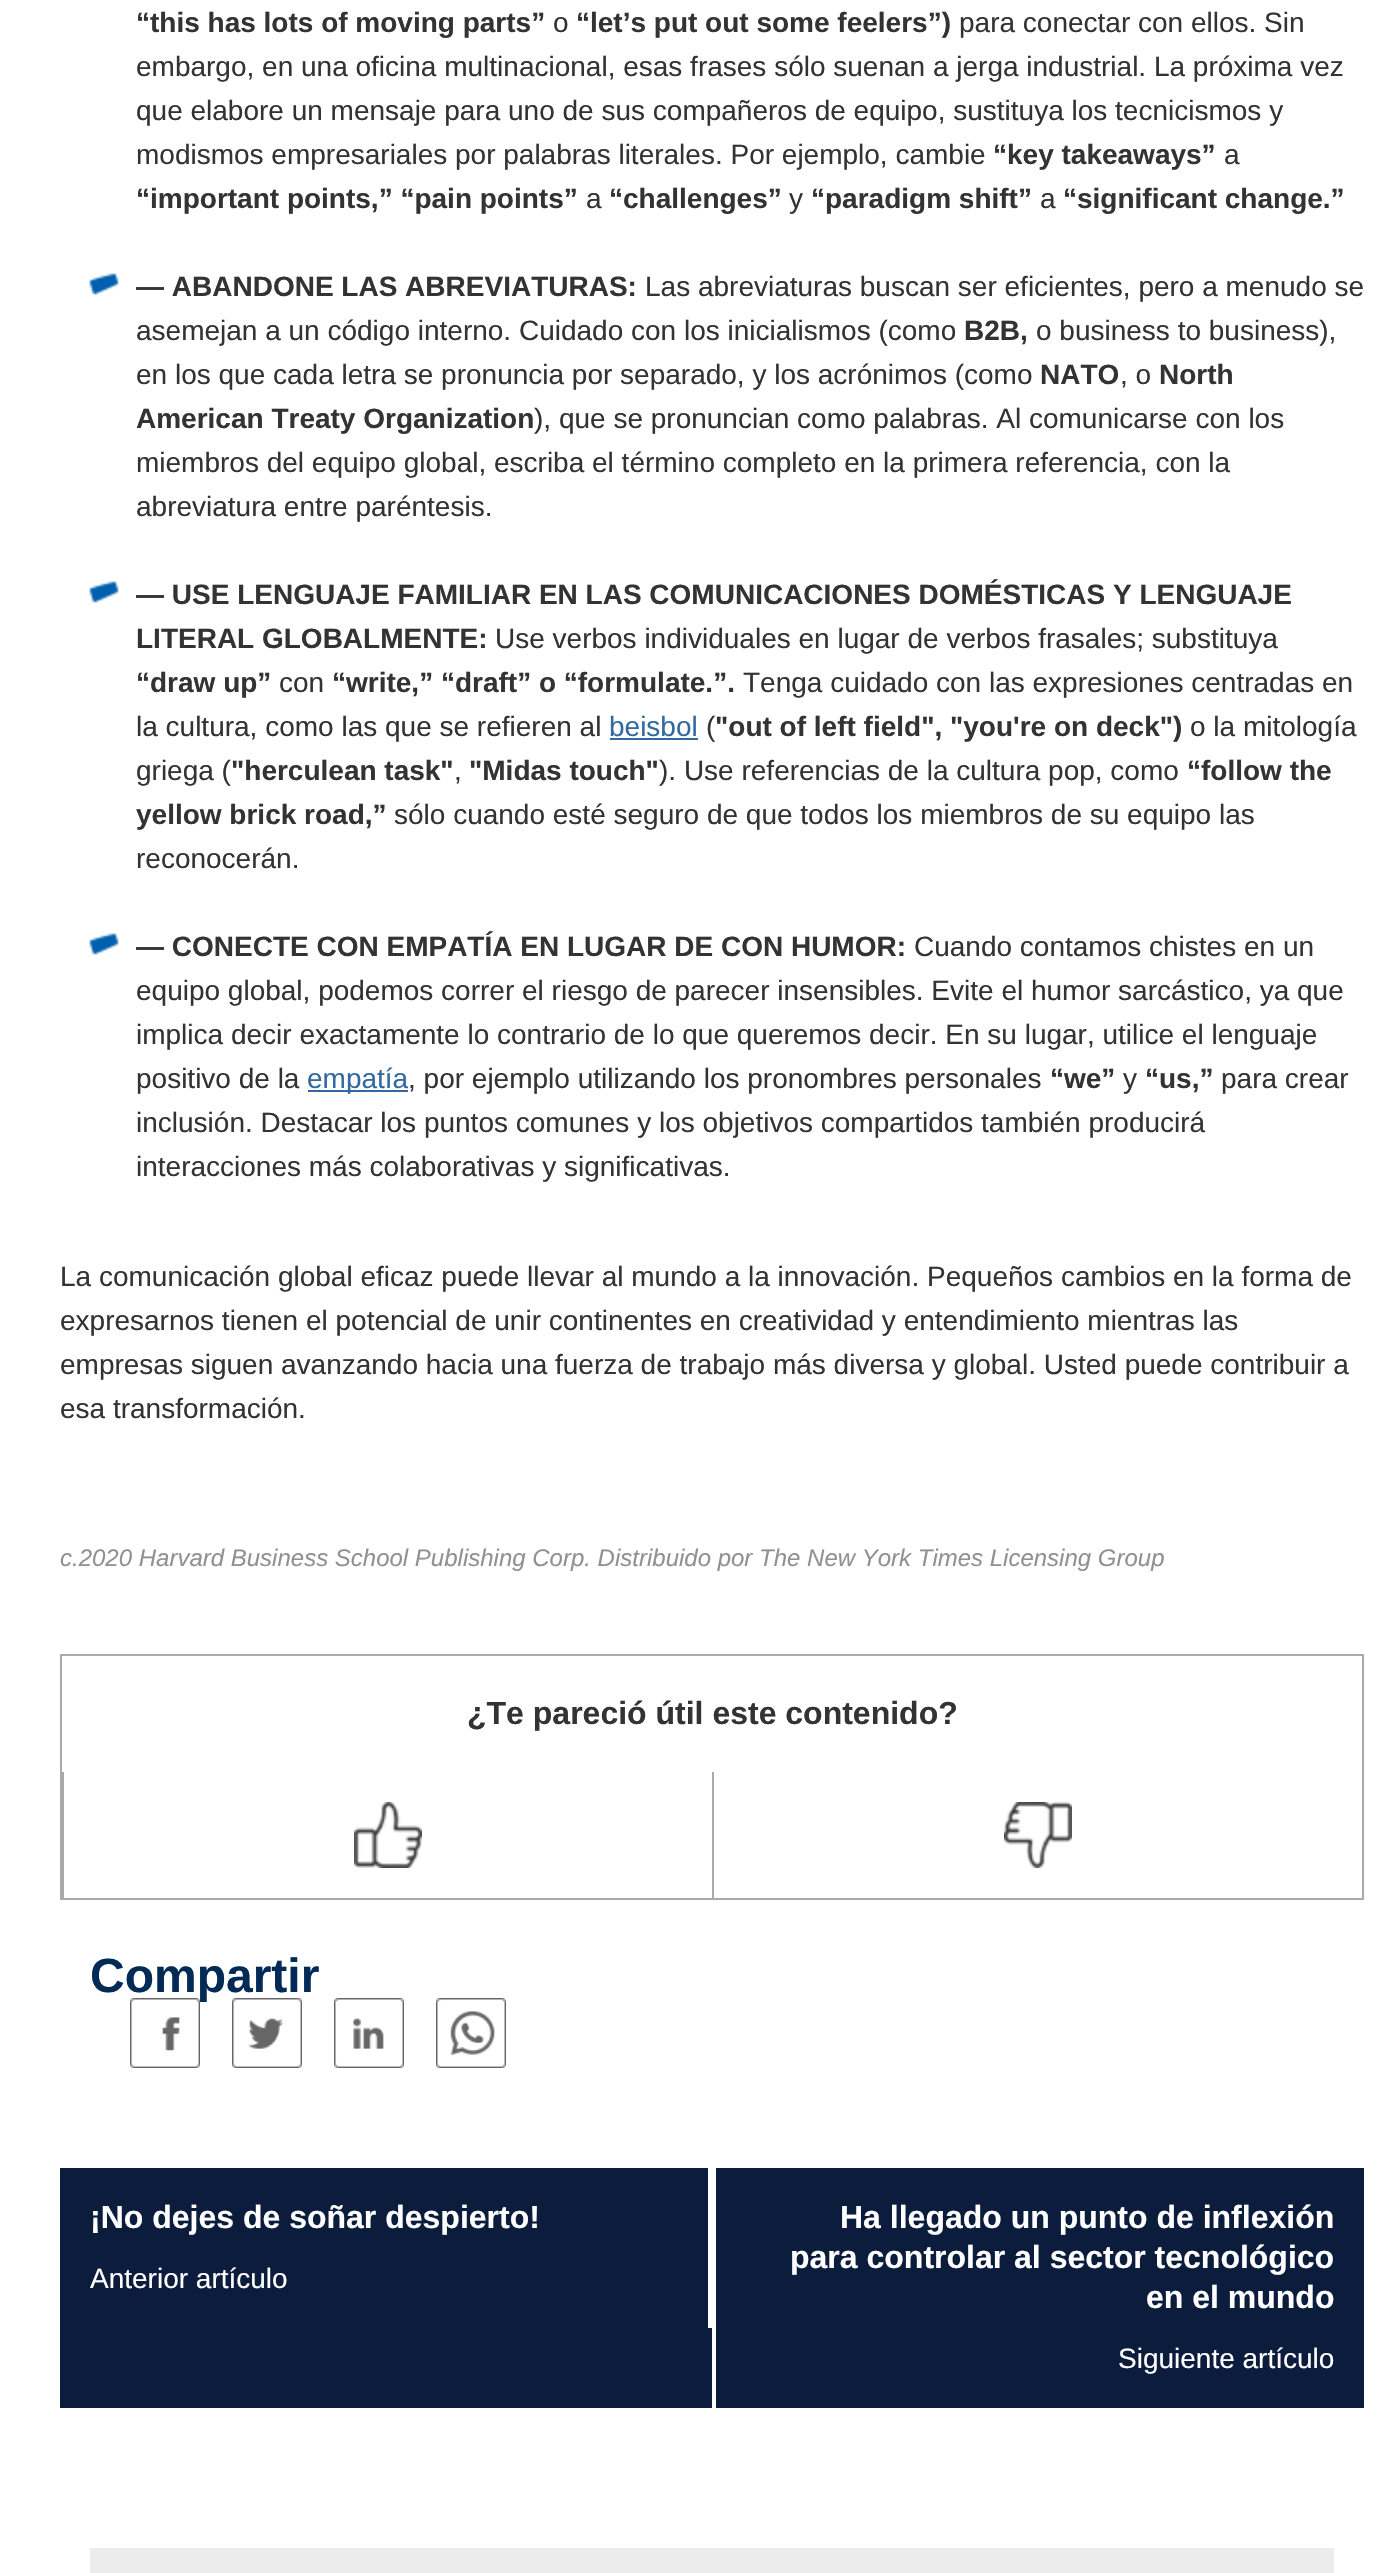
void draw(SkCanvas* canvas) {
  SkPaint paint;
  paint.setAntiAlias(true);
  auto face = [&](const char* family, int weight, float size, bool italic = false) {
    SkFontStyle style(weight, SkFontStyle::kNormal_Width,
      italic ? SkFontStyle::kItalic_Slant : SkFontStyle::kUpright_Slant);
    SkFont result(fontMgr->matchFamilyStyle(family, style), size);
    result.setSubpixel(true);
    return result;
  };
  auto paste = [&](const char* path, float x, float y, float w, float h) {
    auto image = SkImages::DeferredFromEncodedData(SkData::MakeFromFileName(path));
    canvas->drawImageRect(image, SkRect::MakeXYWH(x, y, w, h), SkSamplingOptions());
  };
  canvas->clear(0xffffffff);
  paste("img/1.png", 89, 273, 30, 22);
  paste("img/1.png", 89, 581, 30, 22);
  paint.setColor(0xff3369a3);
  canvas->drawRect(SkRect::MakeXYWH(610, 738, 88, 2), paint);
  paste("img/1.png", 89, 933, 30, 22);
  canvas->drawRect(SkRect::MakeXYWH(308, 1090, 100, 2), paint);
  paint.setStroke(true);
  paint.setStrokeWidth(2);
  paint.setColor(0xffaaaaaa);
  canvas->drawRect(SkRect::MakeXYWH(61, 1655, 1302, 244), paint);
  paint.setStroke(false);
  canvas->drawRect(SkRect::MakeXYWH(62, 1772, 2, 126), paint);
  paste("img/2.png", 354, 1802, 68, 66);
  canvas->drawRect(SkRect::MakeXYWH(712, 1772, 2, 126), paint);
  paste("img/3.png", 1004, 1802, 68, 66);
  paste("img/6.png", 334, 1998, 70, 70);
  paste("img/7.png", 436, 1998, 70, 70);
  {
    const struct { float x, y, w, h; SkColor color; } items[] = {
      {60, 2168, 1304, 240, 0xff0b1c3d},
      {708, 2168, 4, 160, 0xffffffff},
      {712, 2168, 4, 240, 0xffffffff},
      {90, 2548, 1244, 25, 0xffececec},
    };
    for (auto [x, y, w, h, color] : items) {
      paint.setColor(color);
      canvas->drawRect(SkRect::MakeXYWH(x, y, w, h), paint);
    }
  }
  auto f0 = face("Arimo", 700, 28);
  paint.setColor(0xff333333);
  canvas->drawString("“this has lots of moving parts”", 136, 32, f0, paint);
  auto f1 = face("Arimo", 400, 28);
  canvas->drawString("o", 553, 32, f1, paint);
  canvas->drawString("“let’s put out some feelers”)", 576, 32, f0, paint);
  {
    const struct { const char* s; float x, y; } items[] = {
      {"para conectar con ellos. Sin", 959, 32},
      {"embargo, en una oficina multinacional, esas frases sólo suenan a jerga industrial. La próxima vez", 136, 76},
      {"que elabore un mensaje para uno de sus compañeros de equipo, sustituya los tecnicismos y", 136, 120},
      {"modismos empresariales por palabras literales. Por ejemplo, cambie", 136, 164},
    };
    for (auto [s, x, y] : items) {
      canvas->drawString(s, x, y, f1, paint);
    }
  }
  canvas->drawString("“key takeaways”", 993, 164, f0, paint);
  canvas->drawString("a", 1224, 164, f1, paint);
  canvas->drawString("“important points,” “pain points”", 136, 208, f0, paint);
  canvas->drawString("a", 586, 208, f1, paint);
  canvas->drawString("“challenges”", 609, 208, f0, paint);
  canvas->drawString("y", 789, 208, f1, paint);
  canvas->drawString("“paradigm shift”", 811, 208, f0, paint);
  canvas->drawString("a", 1040, 208, f1, paint);
  canvas->drawString("“significant change.”", 1063, 208, f0, paint);
  canvas->drawString("— ABANDONE LAS ABREVIATURAS:", 136, 296, f0, paint);
  canvas->drawString("Las abreviaturas buscan ser eficientes, pero a menudo se", 645, 296, f1, paint);
  canvas->drawString("asemejan a un código interno. Cuidado con los inicialismos (como", 136, 340, f1, paint);
  canvas->drawString("B2B,", 964, 340, f0, paint);
  canvas->drawString("o business to business),", 1036, 340, f1, paint);
  canvas->drawString("en los que cada letra se pronuncia por separado, y los acrónimos (como", 136, 384, f1, paint);
  canvas->drawString("NATO", 1040, 384, f0, paint);
  canvas->drawString(", o", 1120, 384, f1, paint);
  canvas->drawString("North", 1159, 384, f0, paint);
  canvas->drawString("American Treaty Organization", 136, 428, f0, paint);
  {
    const struct { const char* s; float x, y; } items[] = {
      {"), que se pronuncian como palabras. Al comunicarse con los", 534, 428},
      {"miembros del equipo global, escriba el término completo en la primera referencia, con la", 136, 472},
      {"abreviatura entre paréntesis.", 136, 516},
    };
    for (auto [s, x, y] : items) {
      canvas->drawString(s, x, y, f1, paint);
    }
  }
  canvas->drawString("— USE LENGUAJE FAMILIAR EN LAS COMUNICACIONES DOMÉSTICAS Y LENGUAJE", 136, 604, f0, paint);
  canvas->drawString("LITERAL GLOBALMENTE:", 136, 648, f0, paint);
  canvas->drawString("Use verbos individuales en lugar de verbos frasales; substituya", 495, 648, f1, paint);
  canvas->drawString("“draw up”", 136, 692, f0, paint);
  canvas->drawString("con", 279, 692, f1, paint);
  canvas->drawString("“write,” “draft” o “formulate.”.", 332, 692, f0, paint);
  canvas->drawString("Tenga cuidado con las expresiones centradas en", 743, 692, f1, paint);
  canvas->drawString("la cultura, como las que se refieren al", 136, 736, f1, paint);
  paint.setColor(0xff3369a3);
  canvas->drawString("beisbol", 609, 736, f1, paint);
  paint.setColor(0xff333333);
  canvas->drawString("(", 706, 736, f1, paint);
  canvas->drawString("\"out of left field\", \"you're on deck\")", 715, 736, f0, paint);
  canvas->drawString("o la mitología", 1190, 736, f1, paint);
  canvas->drawString("griega (", 136, 780, f1, paint);
  canvas->drawString("\"herculean task\"", 231, 780, f0, paint);
  canvas->drawString(",", 454, 780, f1, paint);
  canvas->drawString("\"Midas touch\"", 469, 780, f0, paint);
  canvas->drawString("). Use referencias de la cultura pop, como", 659, 780, f1, paint);
  canvas->drawString("“follow the", 1187, 780, f0, paint);
  canvas->drawString("yellow brick road,”", 136, 824, f0, paint);
  canvas->drawString("sólo cuando esté seguro de que todos los miembros de su equipo las", 394, 824, f1, paint);
  canvas->drawString("reconocerán.", 136, 868, f1, paint);
  canvas->drawString("— CONECTE CON EMPATÍA EN LUGAR DE CON HUMOR:", 136, 956, f0, paint);
  {
    const struct { const char* s; float x, y; } items[] = {
      {"Cuando contamos chistes en un", 914, 956},
      {"equipo global, podemos correr el riesgo de parecer insensibles. Evite el humor sarcástico, ya que", 136, 1000},
      {"implica decir exactamente lo contrario de lo que queremos decir. En su lugar, utilice el lenguaje", 136, 1044},
      {"positivo de la", 136, 1088},
    };
    for (auto [s, x, y] : items) {
      canvas->drawString(s, x, y, f1, paint);
    }
  }
  paint.setColor(0xff3369a3);
  canvas->drawString("empatía", 307, 1088, f1, paint);
  paint.setColor(0xff333333);
  canvas->drawString(", por ejemplo utilizando los pronombres personales", 408, 1088, f1, paint);
  canvas->drawString("“we”", 1050, 1088, f0, paint);
  canvas->drawString("y", 1123, 1088, f1, paint);
  canvas->drawString("“us,”", 1145, 1088, f0, paint);
  {
    const struct { const char* s; float x, y; } items[] = {
      {"para crear", 1221, 1088},
      {"inclusión. Destacar los puntos comunes y los objetivos compartidos también producirá", 136, 1132},
      {"interacciones más colaborativas y significativas.", 136, 1176},
      {"La comunicación global eficaz puede llevar al mundo a la innovación. Pequeños cambios en la forma de", 60, 1286},
      {"expresarnos tienen el potencial de unir continentes en creatividad y entendimiento mientras las", 60, 1330},
      {"empresas siguen avanzando hacia una fuerza de trabajo más diversa y global. Usted puede contribuir a", 60, 1374},
      {"esa transformación.", 60, 1418},
    };
    for (auto [s, x, y] : items) {
      canvas->drawString(s, x, y, f1, paint);
    }
  }
  auto f2 = face("Arimo", 400, 24, true);
  paint.setColor(0xff919191);
  canvas->drawString("c.2020 Harvard Business School Publishing Corp. Distribuido por The New York Times Licensing Group", 60, 1566, f2, paint);
  auto f3 = face("Arimo", 700, 32);
  paint.setColor(0xff333333);
  canvas->drawString("¿Te pareció útil este contenido?", 467, 1724, f3, paint);
  auto f4 = face("Arimo", 700, 48);
  paint.setColor(0xff012a55);
  canvas->drawString("Compartir", 90, 1992, f4, paint);
  paste("img/4.png", 130, 1998, 70, 70);
  paste("img/5.png", 232, 1998, 70, 70);
  paint.setColor(0xffffffff);
  canvas->drawString("¡No dejes de soñar despierto!", 90, 2228, f3, paint);
  canvas->drawString("Anterior artículo", 90, 2288, f1, paint);
  {
    const struct { const char* s; float x, y; } items[] = {
      {"Ha llegado un punto de inflexión", 840, 2228},
      {"para controlar al sector tecnológico", 790, 2268},
      {"en el mundo", 1146, 2308},
    };
    for (auto [s, x, y] : items) {
      canvas->drawString(s, x, y, f3, paint);
    }
  }
  canvas->drawString("Siguiente artículo", 1118, 2368, f1, paint);
}
